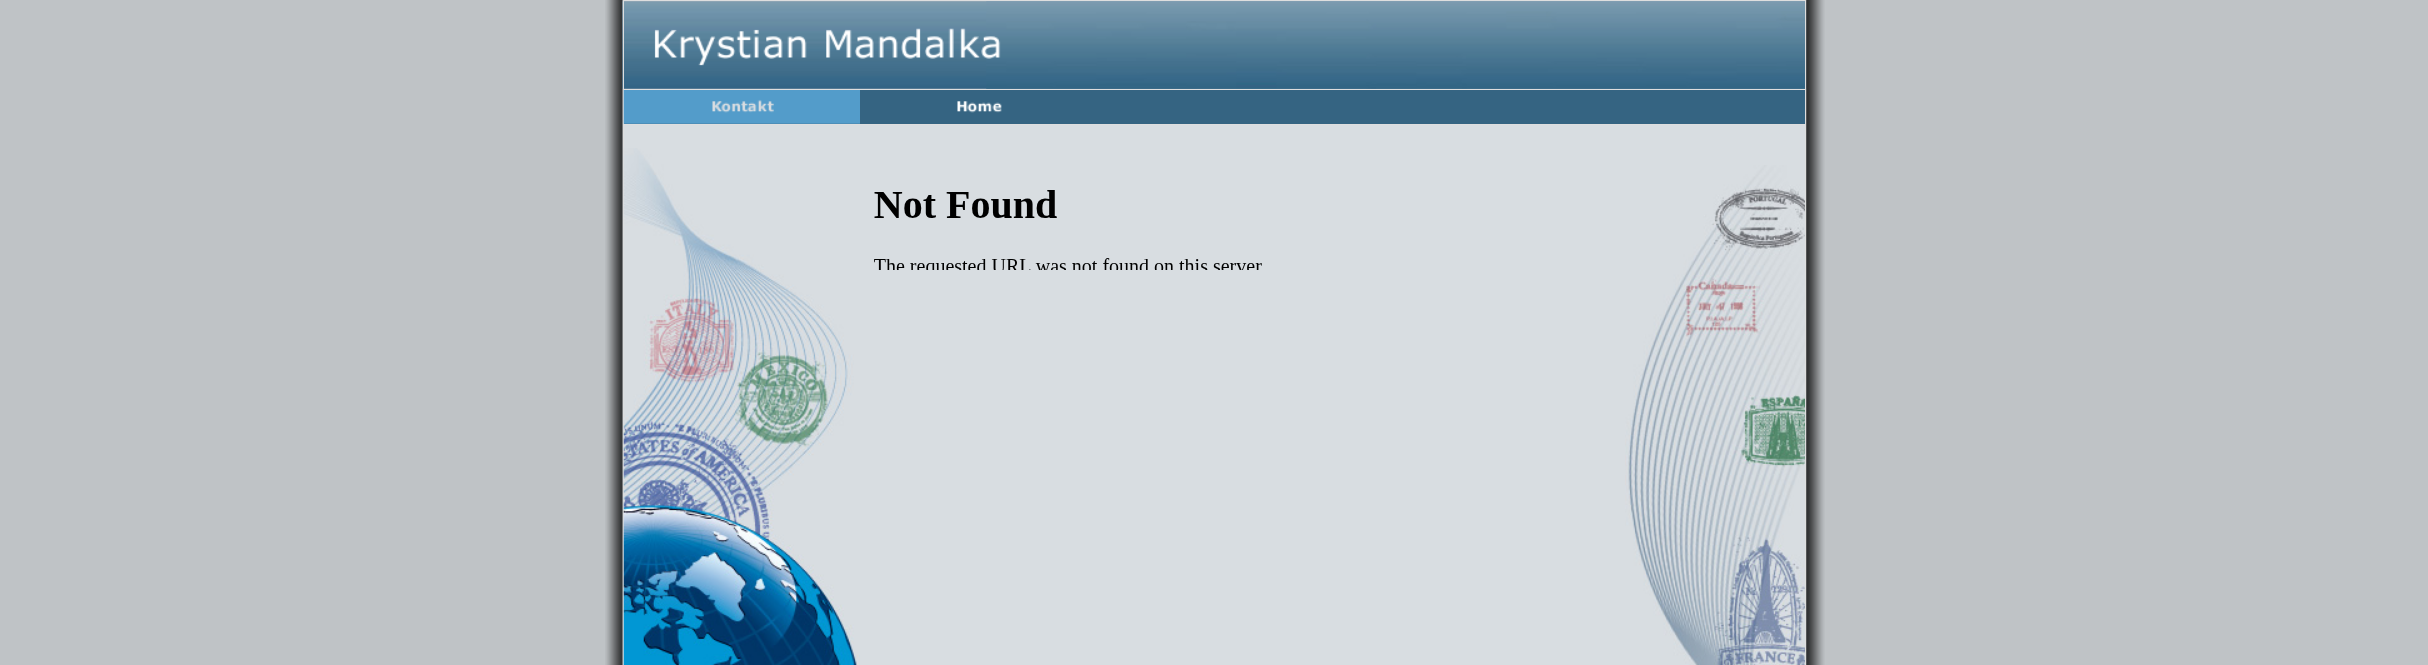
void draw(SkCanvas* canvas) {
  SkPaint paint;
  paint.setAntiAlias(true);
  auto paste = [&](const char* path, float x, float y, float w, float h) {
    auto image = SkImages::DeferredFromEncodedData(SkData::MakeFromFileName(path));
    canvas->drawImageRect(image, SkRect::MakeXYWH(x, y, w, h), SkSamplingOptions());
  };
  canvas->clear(0xffbfc3c6);
  paste("img/1.png", 605, 0, 18, 665);
  paste("img/2.png", 622, 1, 1185, 88);
  {
    const struct { float x, y, w, h; SkColor color; } items[] = {
      {623, 0, 1183, 1, 0xffdedede},
      {1805, 0, 1, 665, 0xffdedede},
      {623, 0, 1, 665, 0xffdedede},
    };
    for (auto [x, y, w, h, color] : items) {
      paint.setColor(color);
      canvas->drawRect(SkRect::MakeXYWH(x, y, w, h), paint);
    }
  }
  paste("img/4.png", 986, 1, 819, 88);
  paste("img/3.png", 654, 28, 347, 38);
  {
    const struct { float x, y, w, h; SkColor color; } items[] = {
      {624, 90, 1181, 34, 0xff356482},
      {624, 89, 1181, 1, 0xffdedede},
      {624, 124, 1181, 1, 0xffdedede},
    };
    for (auto [x, y, w, h, color] : items) {
      paint.setColor(color);
      canvas->drawRect(SkRect::MakeXYWH(x, y, w, h), paint);
    }
  }
  paste("img/5.png", 623, 90, 237, 34);
  paste("img/6.png", 957, 101, 45, 12);
  paint.setColor(0xffd8dde1);
  canvas->drawRect(SkRect::MakeXYWH(624, 125, 1181, 540), paint);
  paste("img/7.png", 623, 148, 237, 517);
  paste("img/8.png", 1625, 165, 180, 500);
  paste("img/9.png", 874, 190, 388, 80);
  paste("img/10.png", 1806, 0, 19, 665);
}
